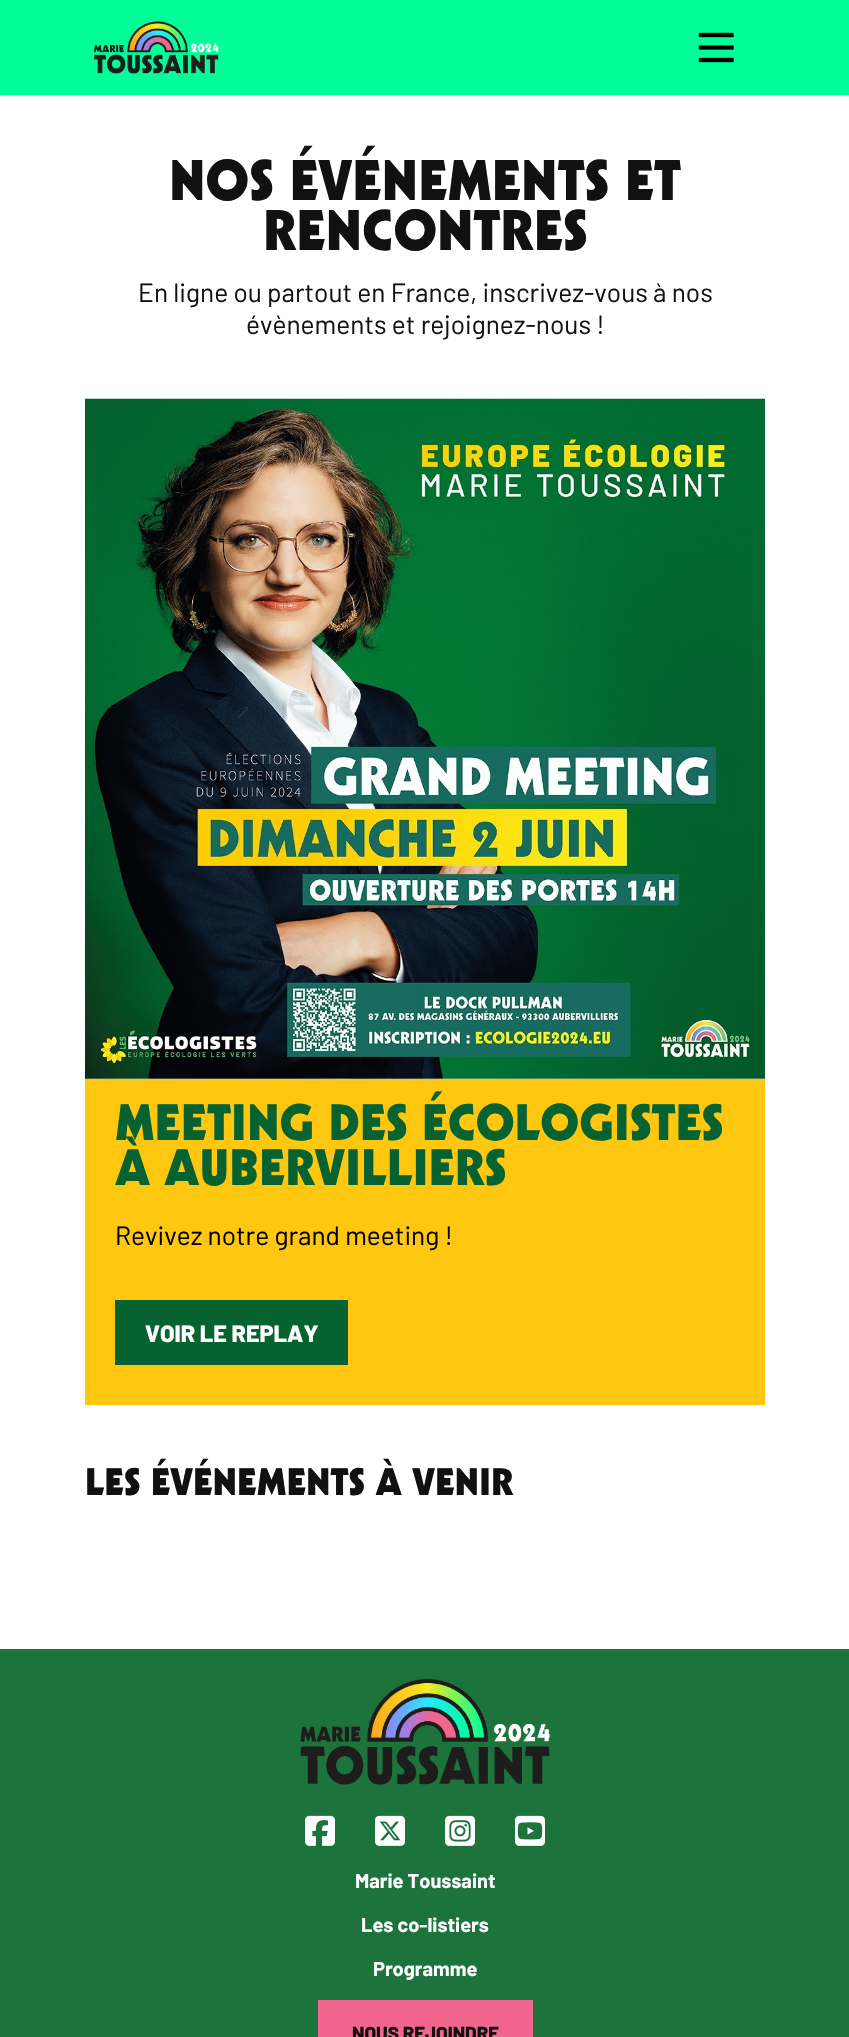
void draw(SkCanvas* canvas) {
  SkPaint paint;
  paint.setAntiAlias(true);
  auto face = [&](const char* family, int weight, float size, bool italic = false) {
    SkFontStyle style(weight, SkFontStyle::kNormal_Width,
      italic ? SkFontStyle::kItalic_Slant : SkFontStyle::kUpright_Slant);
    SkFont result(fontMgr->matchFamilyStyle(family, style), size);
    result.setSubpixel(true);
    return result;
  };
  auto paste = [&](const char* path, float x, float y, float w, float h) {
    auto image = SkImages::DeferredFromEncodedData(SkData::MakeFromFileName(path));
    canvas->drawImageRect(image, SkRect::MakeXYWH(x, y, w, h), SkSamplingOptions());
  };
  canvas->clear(0xffffffff);
  paint.setColor(0xff00ff99);
  canvas->drawRect(SkRect::MakeXYWH(0, 0, 849, 95), paint);
  paste("img/1.png", 93, 21, 126, 53);
  paste("img/2.png", 698, 32, 36, 31);
  paste("img/3.png", 85, 398, 680, 681);
  {
    const struct { float x, y, w, h; SkColor color; } items[] = {
      {85, 1079, 680, 326, 0xffffc70f},
      {115, 1300, 233, 65, 0xff066230},
      {0, 1649, 849, 388, 0xff1d733c},
    };
    for (auto [x, y, w, h, color] : items) {
      paint.setColor(color);
      canvas->drawRect(SkRect::MakeXYWH(x, y, w, h), paint);
    }
  }
  paste("img/4.png", 300, 1678, 250, 107);
  paste("img/5.png", 305, 1815, 30, 31);
  paste("img/6.png", 375, 1815, 30, 31);
  paste("img/7.png", 445, 1815, 30, 31);
  paste("img/8.png", 515, 1815, 30, 31);
  paint.setColor(0xfff2668d);
  canvas->drawRect(SkRect::MakeXYWH(318, 2000, 215, 37), paint);
  auto f0 = face("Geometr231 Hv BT", 900, 56);
  paint.setColor(0xff111111);
  canvas->drawString("NOS ÉVÉNEMENTS ET", 169, 200, f0, paint);
  canvas->drawString("RENCONTRES", 263, 250, f0, paint);
  auto f1 = face("Barlow", 400, 26.25f);
  canvas->drawString("En ligne ou partout en France, inscrivez-vous à nos", 138, 302, f1, paint);
  canvas->drawString("évènements et rejoignez-nous !", 246, 334, f1, paint);
  auto f2 = face("Geometr231 Hv BT", 900, 50);
  paint.setColor(0xff066230);
  canvas->drawString("MEETING DES ÉCOLOGISTES", 115, 1140, f2, paint);
  canvas->drawString("À AUBERVILLIERS", 115, 1185, f2, paint);
  paint.setColor(0xff000000);
  canvas->drawString("Revivez notre grand meeting !", 115, 1245, f1, paint);
  auto f3 = face("Barlow", 800, 23.5f);
  paint.setColor(0xffffffff);
  canvas->drawString("VOIR LE REPLAY", 145, 1342, f3, paint);
  auto f4 = face("Geometr231 Hv BT", 900, 37.5f);
  paint.setColor(0xff111111);
  canvas->drawString("LES ÉVÉNEMENTS À VENIR", 85, 1495, f4, paint);
  auto f5 = face("Barlow", 700, 20);
  paint.setColor(0xffffffff);
  {
    const struct { const char* s; float x, y; } items[] = {
      {"Marie Toussaint", 355, 1888},
      {"Les co-listiers", 361, 1932},
      {"Programme", 373, 1976},
    };
    for (auto [s, x, y] : items) {
      canvas->drawString(s, x, y, f5, paint);
    }
  }
  auto f6 = face("Barlow", 800, 18.75f);
  paint.setColor(0xff111111);
  canvas->drawString("NOUS REJOINDRE", 352, 2040, f6, paint);
}
